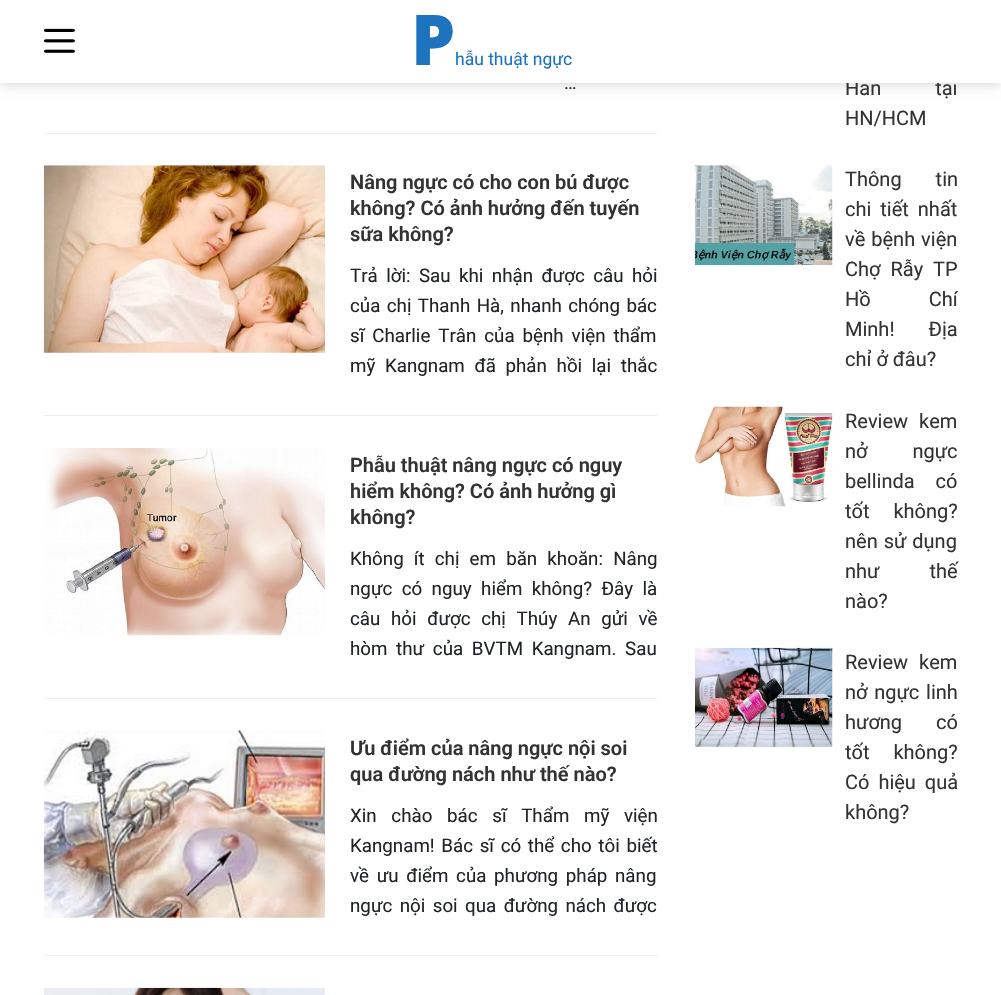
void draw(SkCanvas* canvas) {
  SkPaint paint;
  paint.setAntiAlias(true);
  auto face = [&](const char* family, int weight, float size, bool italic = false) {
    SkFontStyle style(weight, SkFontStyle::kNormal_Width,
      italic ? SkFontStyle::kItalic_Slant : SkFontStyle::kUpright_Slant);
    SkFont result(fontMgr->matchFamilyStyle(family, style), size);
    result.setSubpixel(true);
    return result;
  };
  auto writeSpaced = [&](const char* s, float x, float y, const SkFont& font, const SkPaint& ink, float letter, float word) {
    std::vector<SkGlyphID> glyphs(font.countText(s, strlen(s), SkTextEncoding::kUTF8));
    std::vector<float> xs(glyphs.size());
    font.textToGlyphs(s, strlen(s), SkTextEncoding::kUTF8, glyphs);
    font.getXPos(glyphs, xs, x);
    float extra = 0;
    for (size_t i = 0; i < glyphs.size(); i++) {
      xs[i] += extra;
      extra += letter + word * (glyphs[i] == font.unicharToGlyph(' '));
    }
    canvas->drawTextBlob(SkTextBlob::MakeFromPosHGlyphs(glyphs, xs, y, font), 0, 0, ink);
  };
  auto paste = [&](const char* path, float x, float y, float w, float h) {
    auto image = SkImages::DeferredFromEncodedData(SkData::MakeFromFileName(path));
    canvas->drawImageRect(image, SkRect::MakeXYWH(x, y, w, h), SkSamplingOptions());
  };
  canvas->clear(0xffffffff);
  paint.setColor(0x33000000);
  paint.setMaskFilter(SkMaskFilter::MakeBlur(kNormal_SkBlurStyle, 6));
  canvas->drawRect(SkRect::MakeXYWH(0, 0, 1001, 83), paint);
  paint.setMaskFilter(nullptr);
  paint.setColor(0xffefefef);
  canvas->drawRect(SkRect::MakeXYWH(44, 133, 614, 1), paint);
  canvas->drawRect(SkRect::MakeXYWH(44, 415, 614, 1), paint);
  paste("img/2.png", 43, 165, 282, 188);
  canvas->drawRect(SkRect::MakeXYWH(44, 698, 614, 1), paint);
  paste("img/3.png", 44, 448, 281, 188);
  canvas->drawRect(SkRect::MakeXYWH(44, 955, 614, 1), paint);
  paste("img/4.png", 43, 730, 282, 188);
  paste("img/5.png", 44, 987, 281, 8);
  paste("img/6.png", 695, 165, 138, 101);
  paste("img/7.png", 695, 406, 138, 101);
  paste("img/8.png", 695, 647, 138, 100);
  auto f0 = face("Roboto", 400, 18.75f);
  paint.setColor(0xff212529);
  canvas->drawString("…", 564, 89, f0, paint);
  auto f1 = face("Roboto", 600, 20);
  paint.setColor(0xff333333);
  {
    const struct { const char* s; float x, y; } items[] = {
      {"Nâng ngực có cho con bú được", 350, 189},
      {"không? Có ảnh hưởng đến tuyến", 350, 215},
      {"sữa không?", 350, 241},
    };
    for (auto [s, x, y] : items) {
      canvas->drawString(s, x, y, f1, paint);
    }
  }
  paint.setColor(0xff212529);
  writeSpaced("Trả lời: Sau khi nhận được câu hỏi", 350, 282, f0, paint, 0, 3.75f);
  writeSpaced("của chị Thanh Hà, nhanh chóng bác", 350, 312, f0, paint, 0, 1.75f);
  writeSpaced("sĩ Charlie Trân của bệnh viện thẩm", 350, 342, f0, paint, 0, 3.25f);
  writeSpaced("mỹ Kangnam đã phản hồi lại thắc", 350, 372, f0, paint, 0, 5);
  paint.setColor(0xff333333);
  {
    const struct { const char* s; float x, y; } items[] = {
      {"Phẫu thuật nâng ngực có nguy", 350, 472},
      {"hiểm không? Có ảnh hưởng gì", 350, 498},
      {"không?", 350, 524},
    };
    for (auto [s, x, y] : items) {
      canvas->drawString(s, x, y, f1, paint);
    }
  }
  paint.setColor(0xff212529);
  writeSpaced("Không ít chị em băn khoăn: Nâng", 350, 565, f0, paint, 0, 5.5f);
  writeSpaced("ngực có nguy hiểm không? Đây là", 350, 595, f0, paint, 0, 4.75f);
  writeSpaced("câu hỏi được chị Thúy An gửi về", 350, 625, f0, paint, 0, 6);
  writeSpaced("hòm thư của BVTM Kangnam. Sau", 350, 655, f0, paint, 0, 4);
  paint.setColor(0xff333333);
  canvas->drawString("Ưu điểm của nâng ngực nội soi", 350, 755, f1, paint);
  canvas->drawString("qua đường nách như thế nào?", 350, 781, f1, paint);
  paint.setColor(0xff212529);
  writeSpaced("Xin chào bác sĩ Thẩm mỹ viện", 350, 822, f0, paint, 0, 10);
  writeSpaced("Kangnam! Bác sĩ có thể cho tôi biết", 350, 852, f0, paint, 0, 2);
  writeSpaced("về ưu điểm của phương pháp nâng", 350, 882, f0, paint, 0, 3);
  writeSpaced("ngực nội soi qua đường nách được", 350, 912, f0, paint, 0, 2.75f);
  auto f2 = face("Roboto", 400, 20);
  paint.setColor(0xff333333);
  writeSpaced("Hàn tại", 845, 95, f2, paint, 0, 49);
  paint.setColor(0xffffffff);
  canvas->drawRect(SkRect::MakeXYWH(0, 0, 1001, 83), paint);
  auto f3 = face("Roboto", 400, 17.5f);
  paint.setColor(0xff1e73be);
  canvas->drawString("hẫu thuật ngực", 455, 65, f3, paint);
  auto f4 = face("Noto Sans", 900, 70);
  canvas->drawString("P", 411, 65, f4, paint);
  paste("img/1.png", 44, 28, 31, 25);
  paint.setColor(0xff333333);
  canvas->drawString("HN/HCM", 845, 125, f2, paint);
  writeSpaced("Thông tin", 845, 186, f2, paint, 0, 29);
  writeSpaced("chi tiết nhất", 845, 216, f2, paint, 0, 4);
  writeSpaced("về bệnh viện", 845, 246, f2, paint, 0, 1);
  writeSpaced("Chợ Rẫy TP", 845, 276, f2, paint, 0, 5);
  writeSpaced("Hồ Chí", 845, 306, f2, paint, 0, 53);
  writeSpaced("Minh! Địa", 845, 336, f2, paint, 0, 29);
  canvas->drawString("chỉ ở đâu?", 845, 366, f2, paint);
  writeSpaced("Review kem", 845, 428, f2, paint, 0, 6);
  writeSpaced("nở ngực", 845, 458, f2, paint, 0, 40);
  writeSpaced("bellinda có", 845, 488, f2, paint, 0, 16);
  writeSpaced("tốt không?", 845, 518, f2, paint, 0, 19);
  writeSpaced("nên sử dụng", 845, 548, f2, paint, 0, 1);
  writeSpaced("như thế", 845, 578, f2, paint, 0, 45);
  canvas->drawString("nào?", 845, 608, f2, paint);
  writeSpaced("Review kem", 845, 669, f2, paint, 0, 6);
  writeSpaced("nở ngực linh", 845, 699, f2, paint, 0, 1.75f);
  writeSpaced("hương có", 845, 729, f2, paint, 0, 29);
  writeSpaced("tốt không?", 845, 759, f2, paint, 0, 19);
  writeSpaced("Có hiệu quả", 845, 789, f2, paint, 0, 4);
  canvas->drawString("không?", 845, 819, f2, paint);
}
